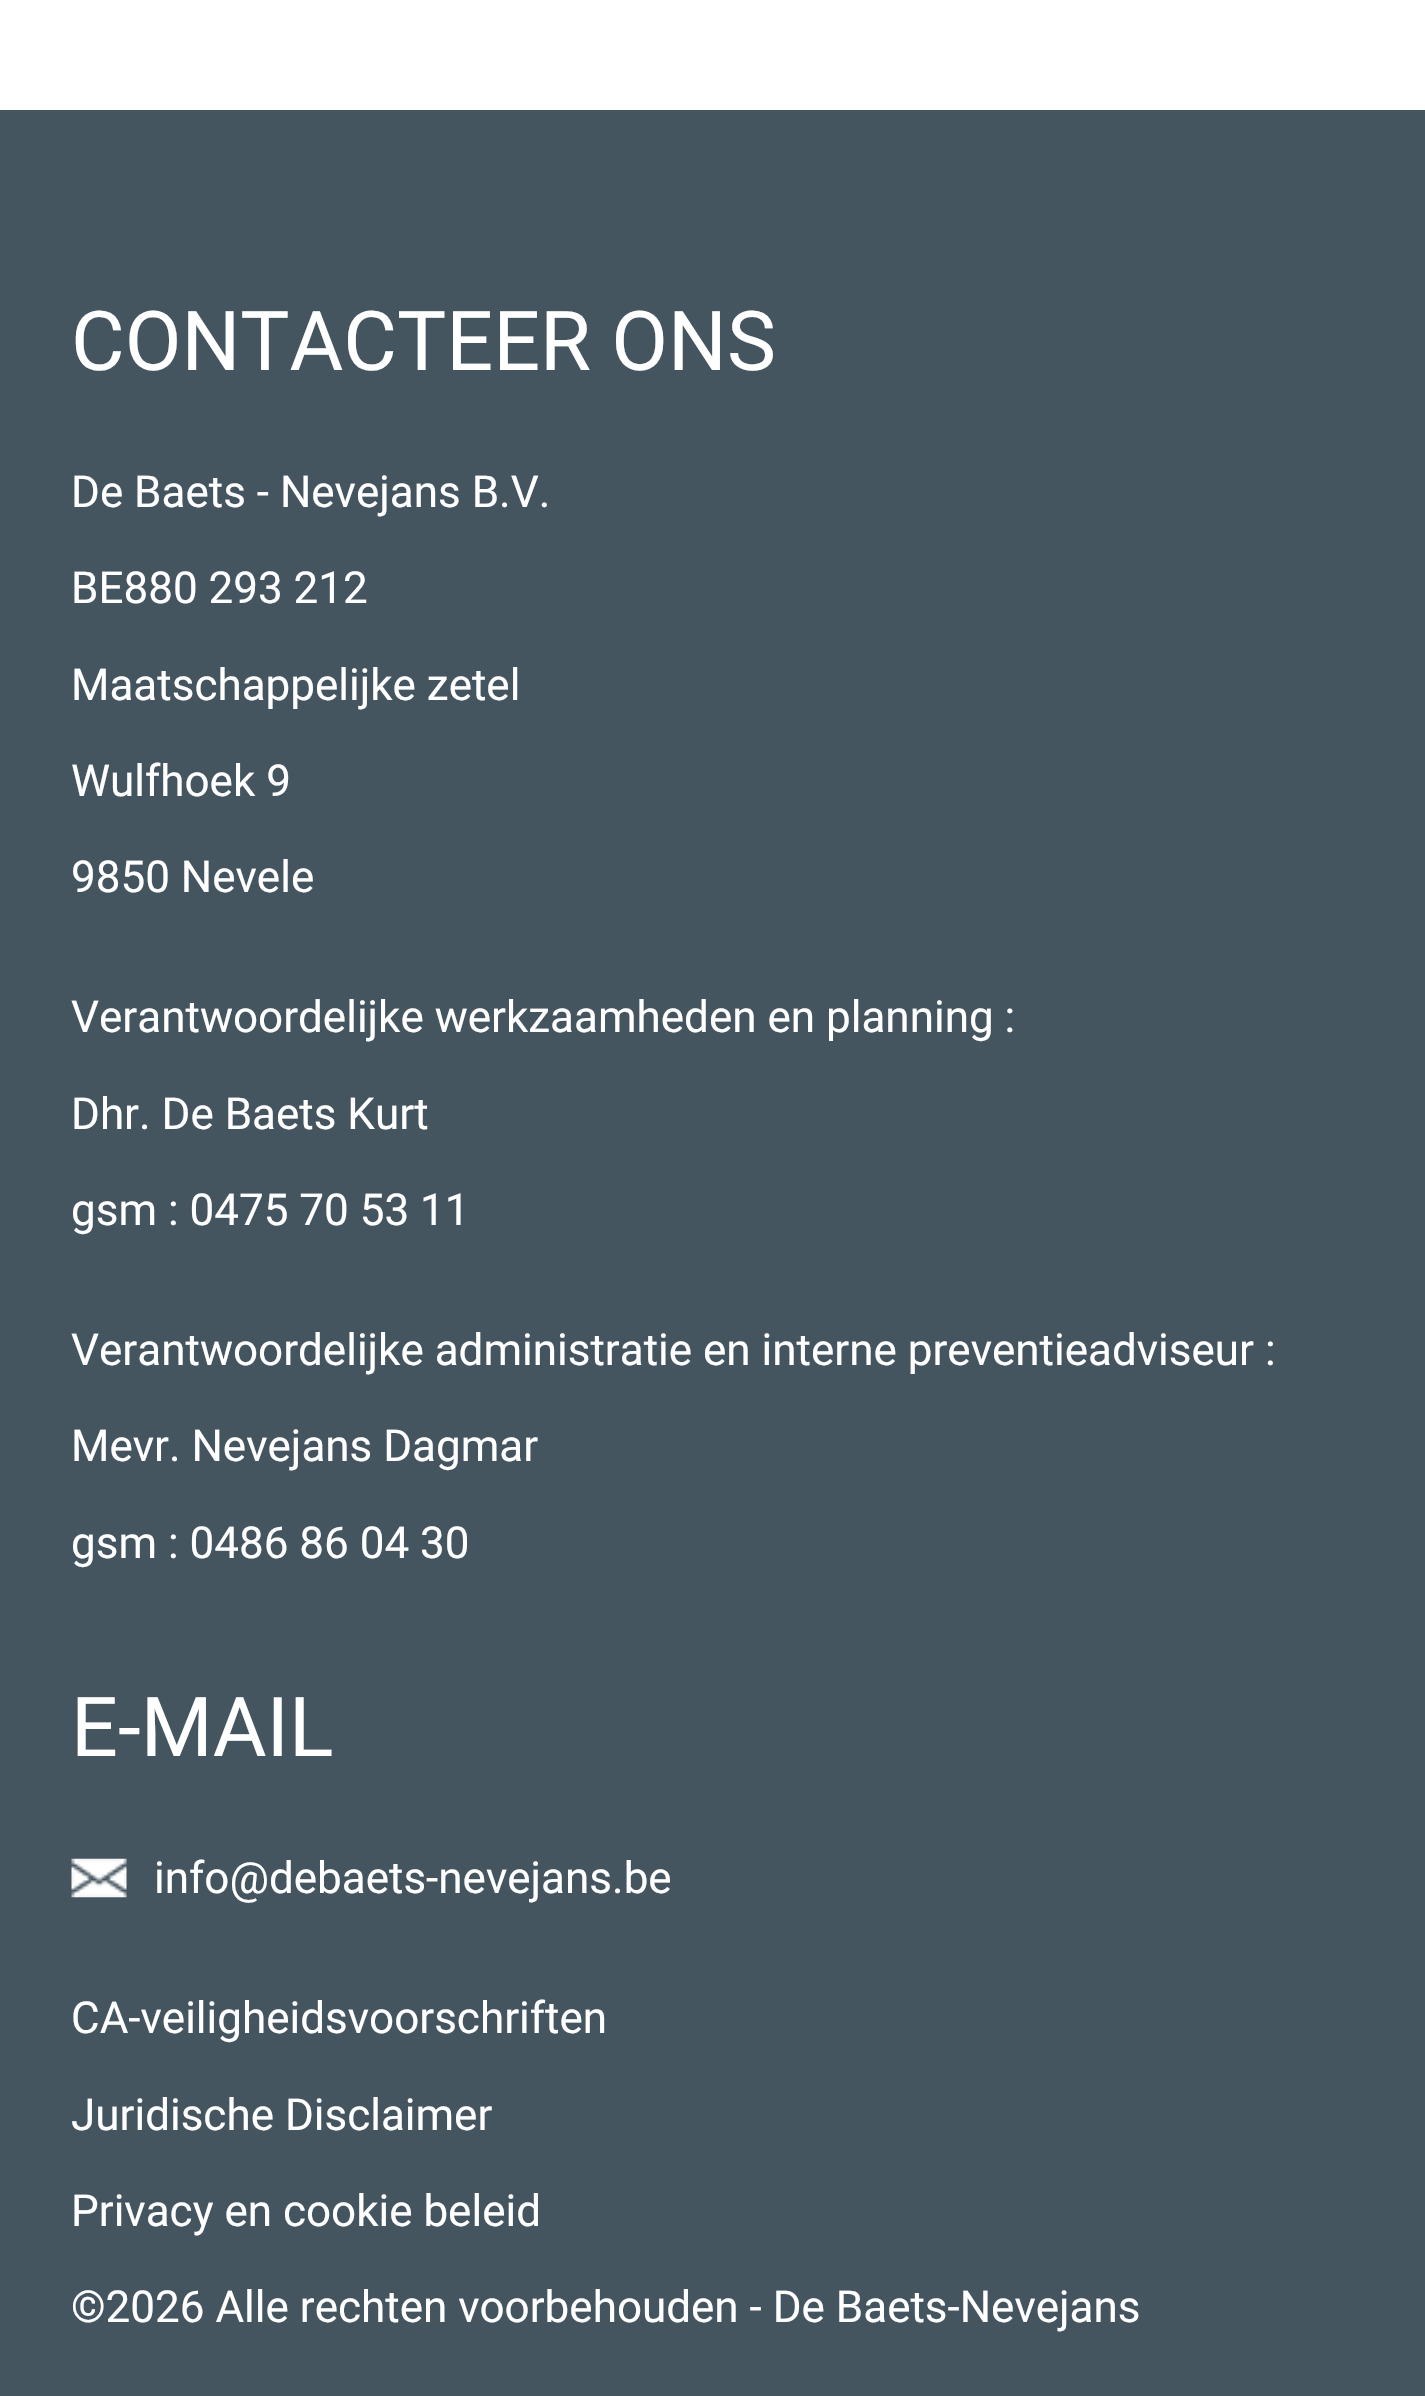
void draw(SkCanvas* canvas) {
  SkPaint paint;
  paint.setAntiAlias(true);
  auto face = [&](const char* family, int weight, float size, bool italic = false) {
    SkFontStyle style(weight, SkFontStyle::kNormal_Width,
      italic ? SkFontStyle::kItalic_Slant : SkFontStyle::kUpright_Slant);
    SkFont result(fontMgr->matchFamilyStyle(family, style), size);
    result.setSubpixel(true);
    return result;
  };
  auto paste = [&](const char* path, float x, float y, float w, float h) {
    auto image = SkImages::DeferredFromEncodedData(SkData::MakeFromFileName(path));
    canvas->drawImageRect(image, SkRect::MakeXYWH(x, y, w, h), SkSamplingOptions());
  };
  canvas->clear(0xffffffff);
  paint.setColor(0xff455560);
  canvas->drawRect(SkRect::MakeXYWH(0, 110, 1425, 2286), paint);
  paste("img/1.png", 71, 1858, 56, 40);
  auto f0 = face("Roboto", 400, 82.5f);
  paint.setColor(0xffffffff);
  canvas->drawString("CONTACTEER ONS", 71, 370, f0, paint);
  auto f1 = face("Roboto", 400, 44);
  {
    const struct { const char* s; float x, y; } items[] = {
      {"De Baets - Nevejans B.V.", 71, 507},
      {"BE880 293 212", 71, 603},
      {"Maatschappelijke zetel", 71, 700},
      {"Wulfhoek 9", 71, 796},
      {"9850 Nevele", 71, 892},
      {"Verantwoordelijke werkzaamheden en planning :", 71, 1032},
      {"Dhr. De Baets Kurt", 71, 1129},
      {"gsm : 0475 70 53 11", 71, 1225},
      {"Verantwoordelijke administratie en interne preventieadviseur :", 71, 1365},
      {"Mevr. Nevejans Dagmar", 71, 1461},
      {"gsm : 0486 86 04 30", 71, 1558},
    };
    for (auto [s, x, y] : items) {
      canvas->drawString(s, x, y, f1, paint);
    }
  }
  canvas->drawString("E-MAIL", 71, 1756, f0, paint);
  {
    const struct { const char* s; float x, y; } items[] = {
      {"info@debaets-nevejans.be", 154, 1893},
      {"CA-veiligheidsvoorschriften", 71, 2033},
      {"Juridische Disclaimer", 71, 2130},
      {"Privacy en cookie beleid", 71, 2226},
      {"©2026 Alle rechten voorbehouden - De Baets-Nevejans", 71, 2322},
    };
    for (auto [s, x, y] : items) {
      canvas->drawString(s, x, y, f1, paint);
    }
  }
}
